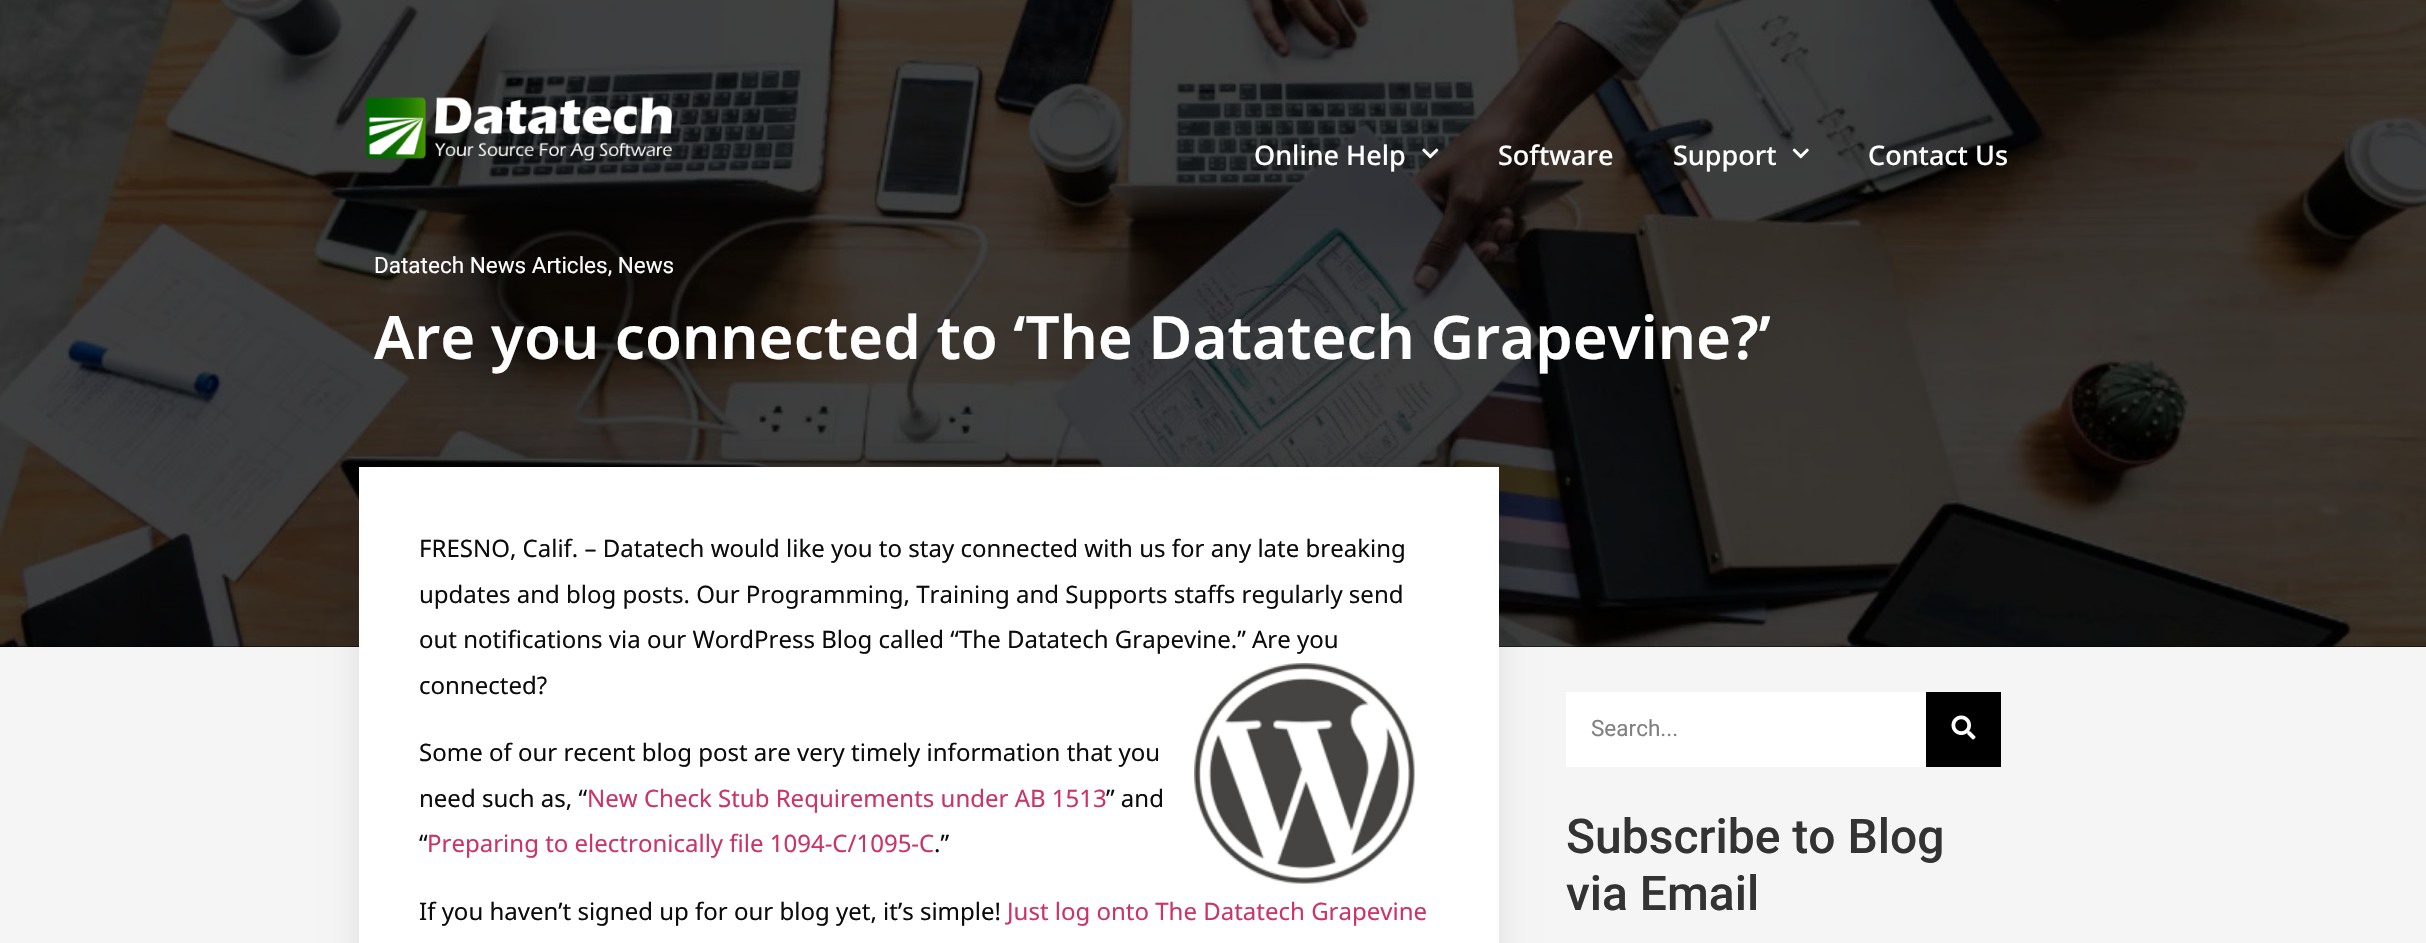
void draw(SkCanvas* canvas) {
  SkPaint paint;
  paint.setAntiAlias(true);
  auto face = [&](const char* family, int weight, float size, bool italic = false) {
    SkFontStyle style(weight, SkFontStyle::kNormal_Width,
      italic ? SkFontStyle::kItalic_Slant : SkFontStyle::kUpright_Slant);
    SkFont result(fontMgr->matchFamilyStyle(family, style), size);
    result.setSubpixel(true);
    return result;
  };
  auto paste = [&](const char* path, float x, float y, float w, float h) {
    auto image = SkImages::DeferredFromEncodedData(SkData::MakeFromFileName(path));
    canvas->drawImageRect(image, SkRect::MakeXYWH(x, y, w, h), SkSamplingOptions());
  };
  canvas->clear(0xfff5f5f5);
  paint.setColor(0xff000000);
  canvas->drawRect(SkRect::MakeXYWH(0, 646, 2426, 1), paint);
  paste("img/1.png", 0, 0, 2426, 647);
  paste("img/2.png", 366, 97, 306, 64);
  paste("img/3.png", 1422, 148, 17, 11);
  paste("img/4.png", 1792, 148, 17, 11);
  paint.setColor(0x17000000);
  paint.setMaskFilter(SkMaskFilter::MakeBlur(kNormal_SkBlurStyle, 15));
  canvas->drawRect(SkRect::MakeXYWH(359, 467, 1140, 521), paint);
  paint.setMaskFilter(nullptr);
  paint.setColor(0xffffffff);
  canvas->drawRect(SkRect::MakeXYWH(359, 467, 1140, 476), paint);
  paste("img/5.png", 1194, 663, 221, 221);
  canvas->drawRect(SkRect::MakeXYWH(1566, 692, 360, 75), paint);
  paint.setColor(0xff000000);
  canvas->drawRect(SkRect::MakeXYWH(1926, 692, 75, 75), paint);
  paste("img/6.png", 1951, 715, 25, 25);
  auto f0 = face("Noto Sans", 500, 27);
  paint.setColor(0xffffffff);
  {
    const struct { const char* s; float x, y; } items[] = {
      {"Online Help", 1254, 165},
      {"Software", 1498, 165},
      {"Support", 1673, 165},
      {"Contact Us", 1868, 165},
    };
    for (auto [s, x, y] : items) {
      canvas->drawString(s, x, y, f0, paint);
    }
  }
  auto f1 = face("Roboto", 400, 22.5f);
  canvas->drawString("Datatech News Articles, News", 374, 273, f1, paint);
  auto f2 = face("Noto Sans", 600, 60);
  canvas->drawString("Are you connected to ‘The Datatech Grapevine?’", 374, 359, f2, paint);
  auto f3 = face("Noto Sans", 400, 24);
  paint.setColor(0xff0c0c0c);
  {
    const struct { const char* s; float x, y; } items[] = {
      {"FRESNO, Calif. – Datatech would like you to stay connected with us for any late breaking", 419, 557},
      {"updates and blog posts. Our Programming, Training and Supports staffs regularly send", 419, 603},
      {"out notifications via our WordPress Blog called “The Datatech Grapevine.” Are you", 419, 648},
      {"connected?", 419, 694},
      {"Some of our recent blog post are very timely information that you", 419, 761},
      {"need such as, “", 419, 807},
    };
    for (auto [s, x, y] : items) {
      canvas->drawString(s, x, y, f3, paint);
    }
  }
  paint.setColor(0xffcc3366);
  canvas->drawString("New Check Stub Requirements under AB 1513", 587, 807, f3, paint);
  paint.setColor(0xff0c0c0c);
  canvas->drawString("” and", 1106, 807, f3, paint);
  canvas->drawString("“", 419, 852, f3, paint);
  paint.setColor(0xffcc3366);
  canvas->drawString("Preparing to electronically file 1094-C/1095-C", 427, 852, f3, paint);
  paint.setColor(0xff0c0c0c);
  canvas->drawString(".”", 934, 852, f3, paint);
  canvas->drawString("If you haven’t signed up for our blog yet, it’s simple!", 419, 920, f3, paint);
  paint.setColor(0xffcc3366);
  canvas->drawString("Just log onto The Datatech Grapevine", 1007, 920, f3, paint);
  paint.setColor(0xff808080);
  canvas->drawString("Search...", 1591, 736, f1, paint);
  auto f4 = face("Roboto", 500, 48);
  paint.setColor(0xff333333);
  canvas->drawString("Subscribe to Blog", 1566, 853, f4, paint);
  canvas->drawString("via Email", 1566, 910, f4, paint);
}
